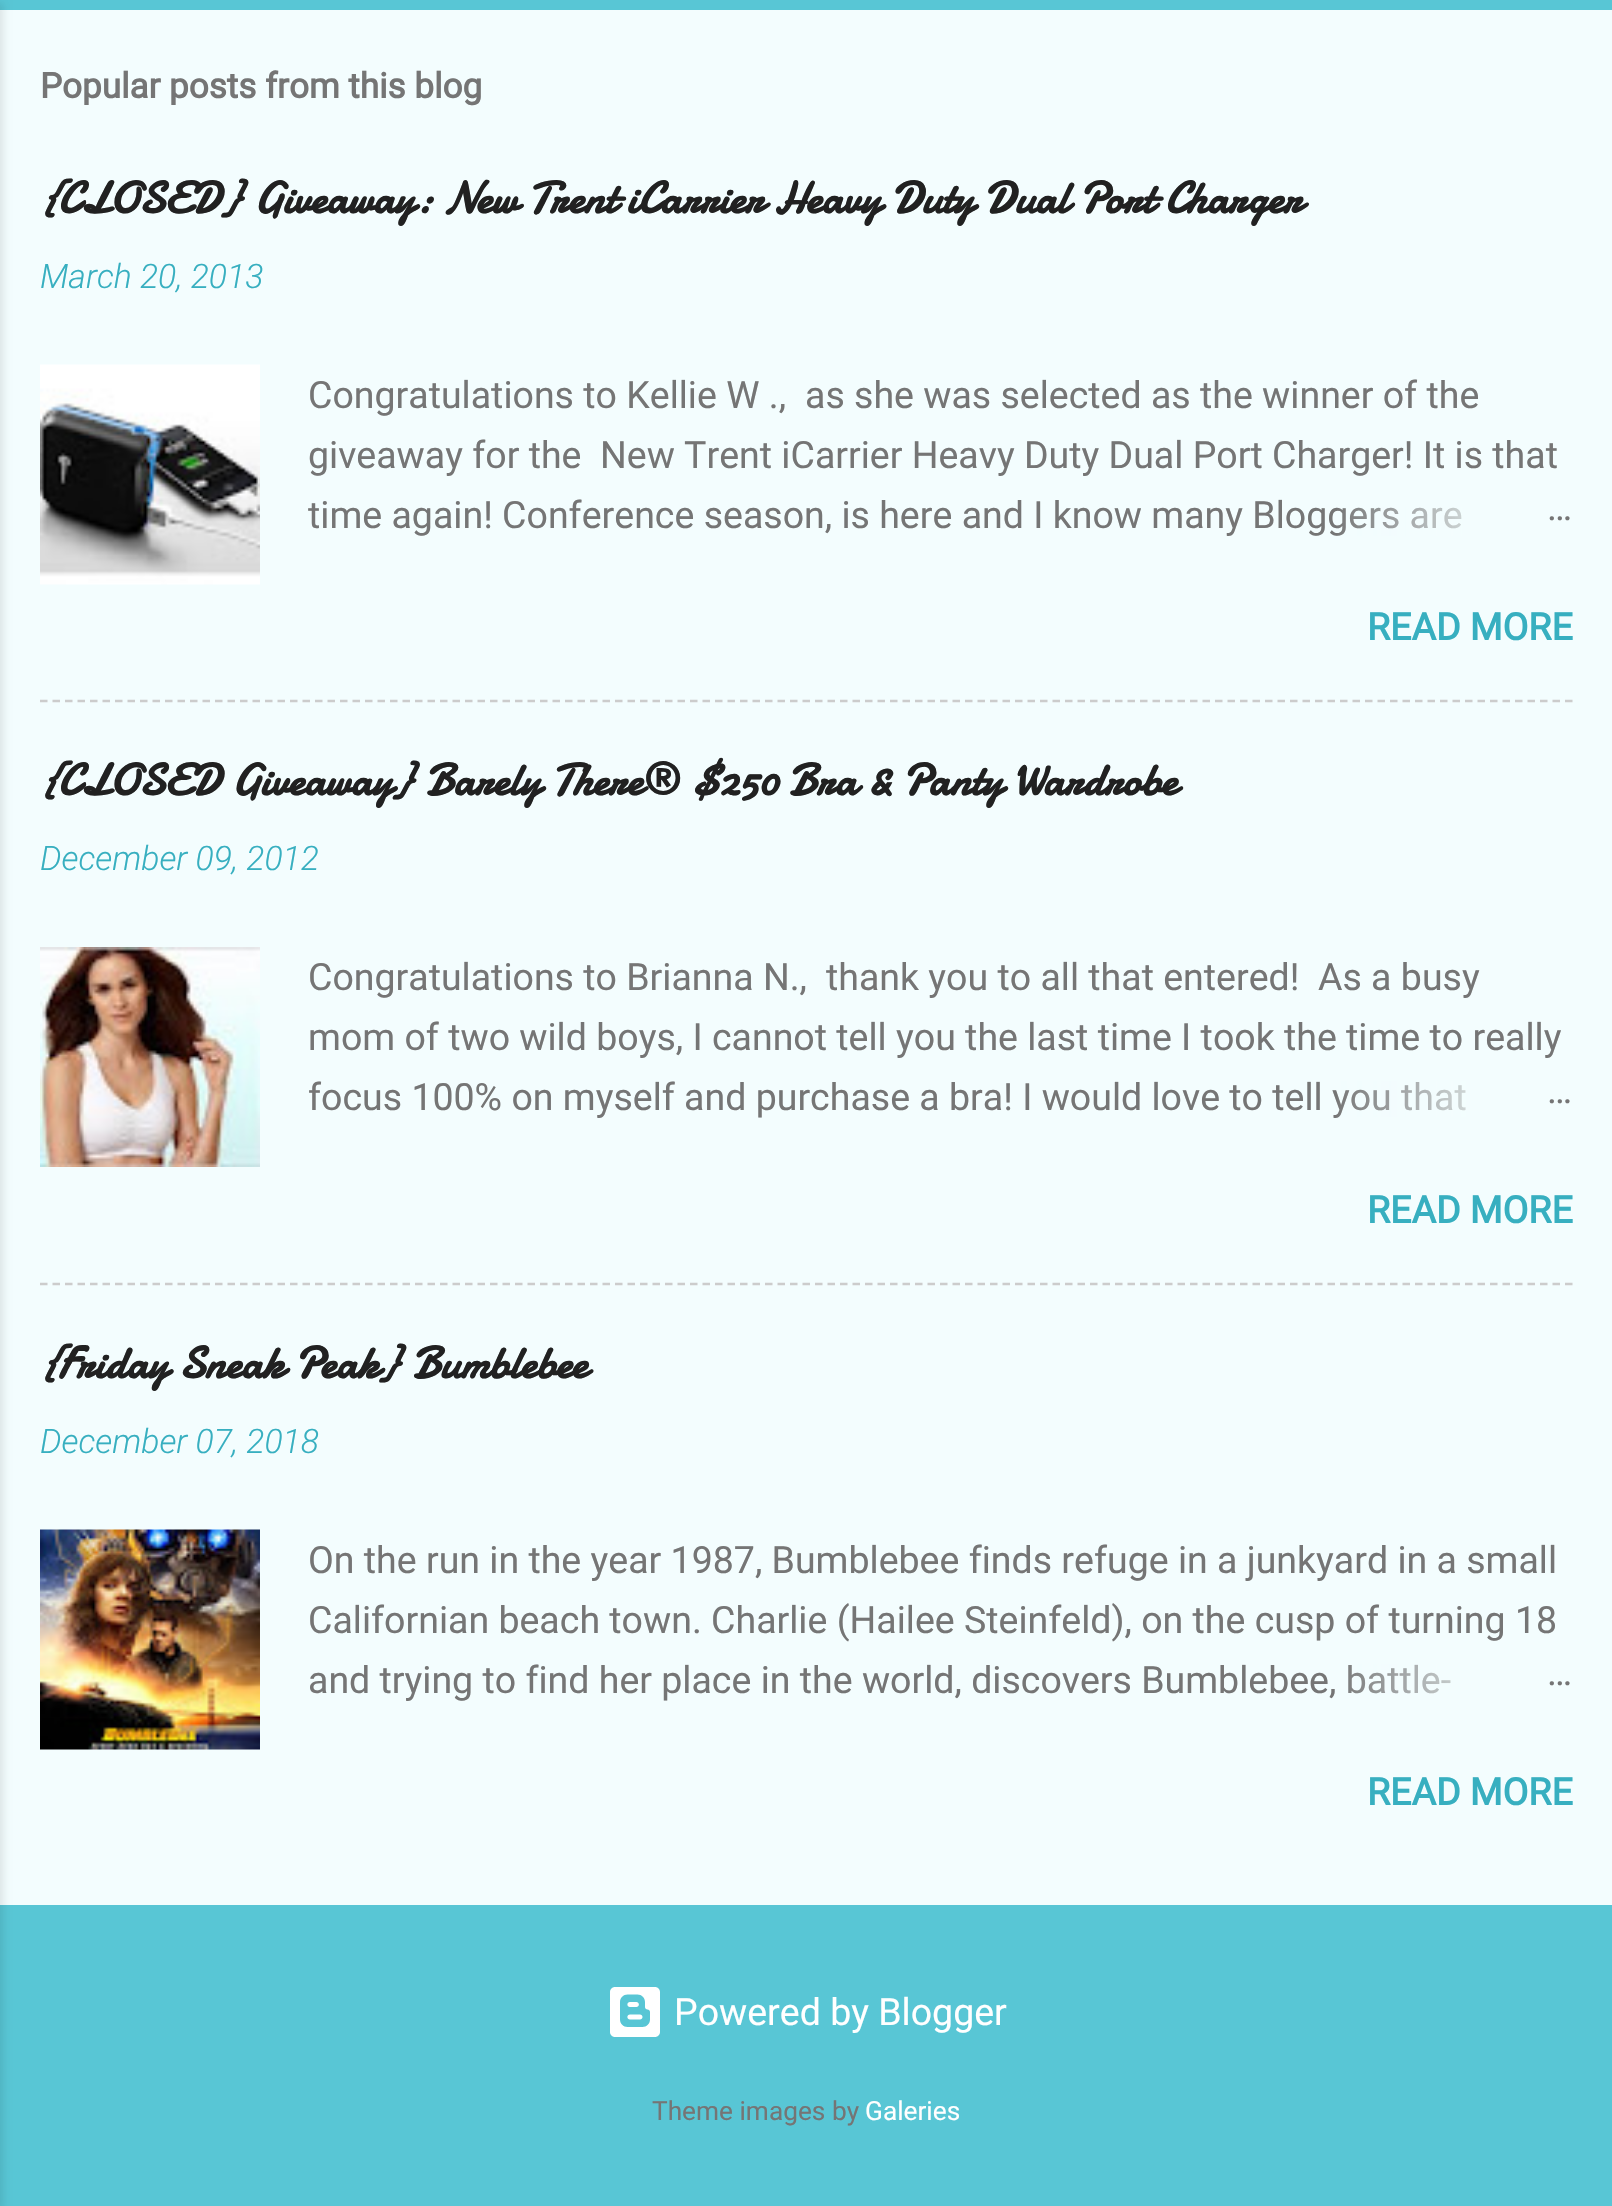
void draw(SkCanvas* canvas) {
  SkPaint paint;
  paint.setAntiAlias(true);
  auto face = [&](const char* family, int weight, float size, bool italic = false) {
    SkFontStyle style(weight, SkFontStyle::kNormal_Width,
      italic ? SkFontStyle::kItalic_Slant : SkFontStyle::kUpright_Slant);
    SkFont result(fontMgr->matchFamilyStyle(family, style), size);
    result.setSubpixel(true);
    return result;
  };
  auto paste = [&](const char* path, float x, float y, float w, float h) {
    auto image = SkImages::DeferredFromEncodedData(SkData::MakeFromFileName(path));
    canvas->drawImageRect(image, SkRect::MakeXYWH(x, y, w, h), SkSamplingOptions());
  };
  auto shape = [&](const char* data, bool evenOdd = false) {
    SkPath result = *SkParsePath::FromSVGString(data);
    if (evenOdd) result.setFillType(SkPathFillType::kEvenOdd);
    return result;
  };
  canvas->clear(0xff58c6d5);
  paint.setColor(0xfff3fdfe);
  canvas->drawRect(SkRect::MakeXYWH(0, 10, 1612, 1895), paint);
  paint.setColor(0x1a000000);
  paint.setMaskFilter(SkMaskFilter::MakeBlur(kNormal_SkBlurStyle, 4));
  canvas->drawRect(SkRect::MakeXYWH(-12, 3, 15, 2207), paint);
  paint.setMaskFilter(nullptr);
  paste("img/1.png", 40, 364, 220, 221);
  paint.setStroke(true);
  paint.setStrokeWidth(2.5f);
  paint.setColor(0xffcccccc);
  paint.setPathEffect(SkDashPathEffect::Make({{7.5f, 5}}, 0));
  canvas->drawPath(shape("M40 701H1572.5"), paint);
  paint.setPathEffect(nullptr);
  paste("img/2.png", 40, 947, 220, 220);
  paint.setPathEffect(SkDashPathEffect::Make({{7.5f, 5}}, 0));
  canvas->drawPath(shape("M40 1284H1572.5"), paint);
  paint.setPathEffect(nullptr);
  paste("img/3.png", 40, 1529, 220, 221);
  paste("img/4.png", 610, 1987, 50, 50);
  auto f0 = face("Roboto", 700, 35);
  paint.setStroke(false);
  paint.setColor(0xff757575);
  canvas->drawString("Popular posts from this blog", 40, 98, f0, paint);
  auto f1 = face("Damion", 700, 45);
  paint.setColor(0xff212121);
  canvas->drawString("{CLOSED} Giveaway: New Trent iCarrier Heavy Duty Dual Port Charger", 40, 213, f1, paint);
  auto f2 = face("Roboto", 300, 33.75f, true);
  paint.setColor(0xff37afc0);
  canvas->drawString("March 20, 2013", 40, 288, f2, paint);
  auto f3 = face("Roboto", 400, 37.5f);
  paint.setColor(0xff757575);
  {
    const struct { const char* s; float x, y; } items[] = {
      {"Congratulations to Kellie W .,", 308, 408},
      {"as she was selected as the winner of the", 805, 408},
      {"giveaway for the", 308, 468},
      {"New Trent iCarrier Heavy Duty Dual Port Charger! It is that", 600, 468},
      {"time again! Conference season, is here and I know many Bloggers are", 308, 528},
    };
    for (auto [s, x, y] : items) {
      canvas->drawString(s, x, y, f3, paint);
    }
  }
  {
    const SkColor colors[] = {0xfff3fdfe, 0xfff3fdfe, 0x00f3fdfe};
    const float stops[] = {0, 0.2f, 1};
    const SkPoint ends[] = {{1573, 515}, {1333, 515}};
    paint.setShader(SkGradientShader::MakeLinear(ends, colors, stops, 3, SkTileMode::kClamp));
    paint.setAlpha(255);
  }
  canvas->drawRect(SkRect::MakeXYWH(1337, 507, 125, 29), paint);
  paint.setShader(nullptr);
  paint.setColor(0xff757575);
  canvas->drawString("…", 1547, 520, f3, paint);
  auto f4 = face("Roboto", 700, 37.5f);
  paint.setColor(0xff37afc0);
  canvas->drawString("READ MORE", 1367, 640, f4, paint);
  paint.setColor(0xff212121);
  canvas->drawString("{CLOSED Giveaway} Barely There® $250 Bra & Panty Wardrobe", 40, 795, f1, paint);
  paint.setColor(0xff37afc0);
  canvas->drawString("December 09, 2012", 40, 870, f2, paint);
  paint.setColor(0xff757575);
  {
    const struct { const char* s; float x, y; } items[] = {
      {"Congratulations to Brianna N.,", 308, 990},
      {"thank you to all that entered!", 826, 990},
      {"As a busy", 1318, 990},
      {"mom of two wild boys, I cannot tell you the last time I took the time to really", 308, 1050},
      {"focus 100% on myself and purchase a bra! I would love to tell you that", 308, 1110},
    };
    for (auto [s, x, y] : items) {
      canvas->drawString(s, x, y, f3, paint);
    }
  }
  {
    const SkColor colors[] = {0xfff3fdfe, 0xfff3fdfe, 0x00f3fdfe};
    const float stops[] = {0, 0.2f, 1};
    const SkPoint ends[] = {{1573, 1098}, {1333, 1098}};
    paint.setShader(SkGradientShader::MakeLinear(ends, colors, stops, 3, SkTileMode::kClamp));
    paint.setAlpha(255);
  }
  canvas->drawRect(SkRect::MakeXYWH(1337, 1081, 129, 36), paint);
  paint.setShader(nullptr);
  paint.setColor(0xff757575);
  canvas->drawString("…", 1547, 1103, f3, paint);
  paint.setColor(0xff37afc0);
  canvas->drawString("READ MORE", 1367, 1223, f4, paint);
  paint.setColor(0xff212121);
  canvas->drawString("{Friday Sneak Peak} Bumblebee", 40, 1378, f1, paint);
  paint.setColor(0xff37afc0);
  canvas->drawString("December 07, 2018", 40, 1453, f2, paint);
  paint.setColor(0xff757575);
  {
    const struct { const char* s; float x, y; } items[] = {
      {"On the run in the year 1987, Bumblebee finds refuge in a junkyard in a small", 308, 1573},
      {"Californian beach town. Charlie (Hailee Steinfeld), on the cusp of turning 18", 308, 1633},
      {"and trying to find her place in the world, discovers Bumblebee, battle-", 308, 1693},
    };
    for (auto [s, x, y] : items) {
      canvas->drawString(s, x, y, f3, paint);
    }
  }
  {
    const SkColor colors[] = {0xfff3fdfe, 0xfff3fdfe, 0x00f3fdfe};
    const float stops[] = {0, 0.2f, 1};
    const SkPoint ends[] = {{1573, 1680}, {1333, 1680}};
    paint.setShader(SkGradientShader::MakeLinear(ends, colors, stops, 3, SkTileMode::kClamp));
    paint.setAlpha(255);
  }
  canvas->drawRect(SkRect::MakeXYWH(1348, 1664, 103, 30), paint);
  paint.setShader(nullptr);
  paint.setColor(0xff757575);
  canvas->drawString("…", 1547, 1685, f3, paint);
  paint.setColor(0xff37afc0);
  canvas->drawString("READ MORE", 1367, 1805, f4, paint);
  paint.setColor(0xffffffff);
  canvas->drawString("Powered by Blogger", 674, 2025, f3, paint);
  auto f5 = face("Roboto", 400, 26.25f);
  paint.setColor(0xff757575);
  canvas->drawString("Theme images by", 652, 2120, f5, paint);
  paint.setColor(0xffffffff);
  canvas->drawString("Galeries", 865, 2120, f5, paint);
}
